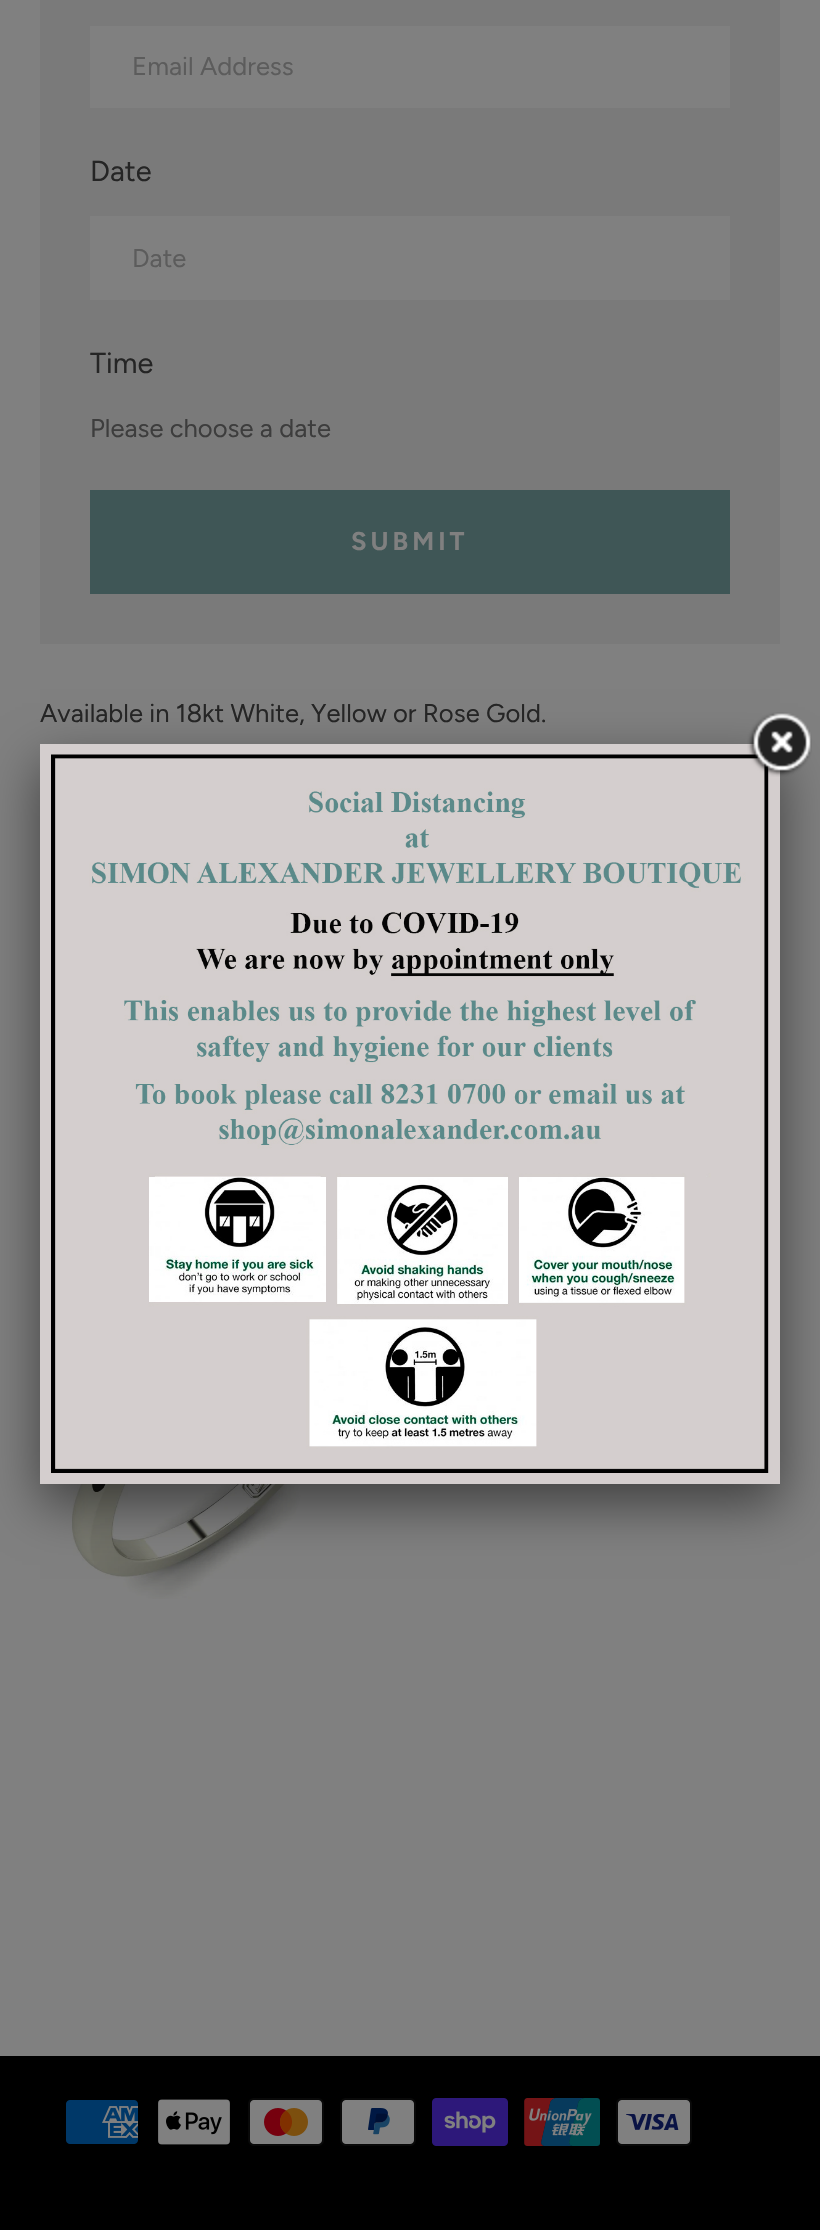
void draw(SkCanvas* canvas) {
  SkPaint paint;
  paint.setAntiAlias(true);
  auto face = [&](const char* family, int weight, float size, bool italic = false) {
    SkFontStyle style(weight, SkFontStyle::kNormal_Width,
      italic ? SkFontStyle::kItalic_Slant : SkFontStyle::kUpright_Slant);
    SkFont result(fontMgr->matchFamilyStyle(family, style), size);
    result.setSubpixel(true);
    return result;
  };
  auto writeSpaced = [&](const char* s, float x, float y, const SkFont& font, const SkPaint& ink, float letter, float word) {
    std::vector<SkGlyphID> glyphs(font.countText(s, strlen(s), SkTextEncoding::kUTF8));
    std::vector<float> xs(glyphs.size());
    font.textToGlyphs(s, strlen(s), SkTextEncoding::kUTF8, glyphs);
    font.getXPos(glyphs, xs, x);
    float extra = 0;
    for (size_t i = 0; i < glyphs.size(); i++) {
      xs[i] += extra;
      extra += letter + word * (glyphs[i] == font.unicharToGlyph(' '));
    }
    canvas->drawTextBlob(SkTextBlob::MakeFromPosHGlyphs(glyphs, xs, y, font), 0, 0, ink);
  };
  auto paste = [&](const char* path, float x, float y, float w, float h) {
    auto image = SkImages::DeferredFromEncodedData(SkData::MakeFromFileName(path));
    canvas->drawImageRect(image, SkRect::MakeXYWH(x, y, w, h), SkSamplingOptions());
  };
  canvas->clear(0xff000000);
  {
    const struct { float x, y, w, h; SkColor color; } items[] = {
      {0, 0, 820, 2056, 0xff808080},
      {40, 0, 740, 644, 0xff7a7a7a},
      {90, 26, 640, 82, 0xff808080},
      {90, 216, 640, 84, 0xff808080},
      {90, 490, 640, 104, 0xff3f5656},
    };
    for (auto [x, y, w, h, color] : items) {
      paint.setColor(color);
      canvas->drawRect(SkRect::MakeXYWH(x, y, w, h), paint);
    }
  }
  paste("img/1.png", 72, 1484, 275, 115);
  paste("img/2.png", 66, 2100, 72, 44);
  paste("img/3.png", 158, 2099, 72, 46);
  paste("img/4.png", 248, 2098, 76, 48);
  paste("img/5.png", 340, 2098, 76, 48);
  paste("img/6.png", 432, 2098, 76, 48);
  paste("img/7.png", 524, 2098, 76, 48);
  paste("img/8.png", 616, 2098, 76, 48);
  paint.setColor(0x80000000);
  paint.setMaskFilter(SkMaskFilter::MakeBlur(kNormal_SkBlurStyle, 25));
  canvas->drawRect(SkRect::MakeXYWH(40, 764, 740, 740), paint);
  paint.setMaskFilter(nullptr);
  paste("img/10.png", 40, 744, 740, 740);
  paste("img/9.png", 747, 712, 65, 65);
  auto f0 = face("Figtree", 400, 25.6f);
  paint.setColor(0xff5c5c5c);
  canvas->drawString("Email Address", 132, 75, f0, paint);
  auto f1 = face("Figtree", 400, 29);
  paint.setColor(0xff252525);
  canvas->drawString("Date", 90, 181, f1, paint);
  paint.setColor(0xff5c5c5c);
  canvas->drawString("Date", 132, 267, f0, paint);
  paint.setColor(0xff252525);
  canvas->drawString("Time", 90, 373, f1, paint);
  paint.setColor(0xff3d3d3d);
  canvas->drawString("Please choose a date", 90, 437, f0, paint);
  auto f2 = face("Figtree", 700, 25.6f);
  paint.setColor(0xff808080);
  writeSpaced("SUBMIT", 351, 550, f2, paint, 4, 0);
  paint.setColor(0xff252525);
  canvas->drawString("Available in 18kt White, Yellow or Rose Gold.", 40, 722, f0, paint);
}
